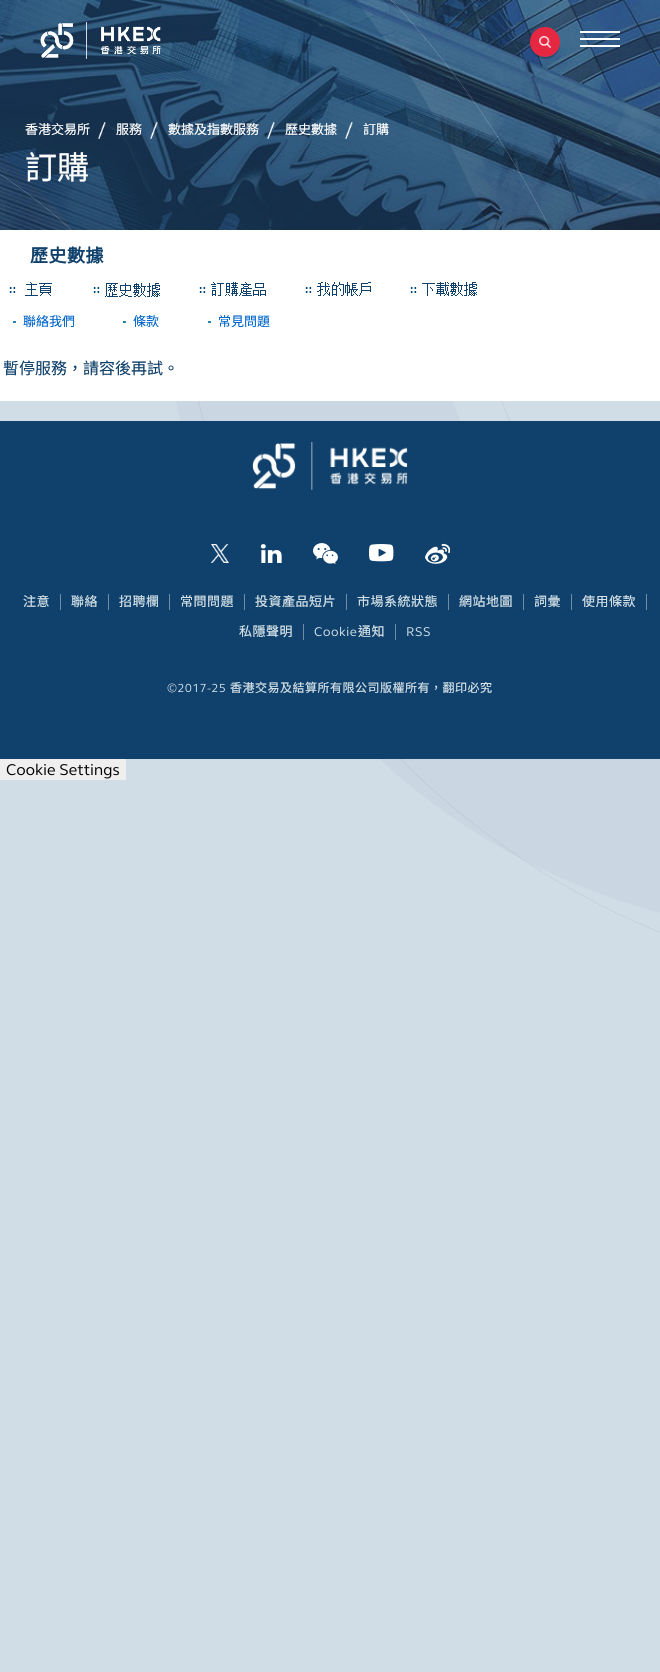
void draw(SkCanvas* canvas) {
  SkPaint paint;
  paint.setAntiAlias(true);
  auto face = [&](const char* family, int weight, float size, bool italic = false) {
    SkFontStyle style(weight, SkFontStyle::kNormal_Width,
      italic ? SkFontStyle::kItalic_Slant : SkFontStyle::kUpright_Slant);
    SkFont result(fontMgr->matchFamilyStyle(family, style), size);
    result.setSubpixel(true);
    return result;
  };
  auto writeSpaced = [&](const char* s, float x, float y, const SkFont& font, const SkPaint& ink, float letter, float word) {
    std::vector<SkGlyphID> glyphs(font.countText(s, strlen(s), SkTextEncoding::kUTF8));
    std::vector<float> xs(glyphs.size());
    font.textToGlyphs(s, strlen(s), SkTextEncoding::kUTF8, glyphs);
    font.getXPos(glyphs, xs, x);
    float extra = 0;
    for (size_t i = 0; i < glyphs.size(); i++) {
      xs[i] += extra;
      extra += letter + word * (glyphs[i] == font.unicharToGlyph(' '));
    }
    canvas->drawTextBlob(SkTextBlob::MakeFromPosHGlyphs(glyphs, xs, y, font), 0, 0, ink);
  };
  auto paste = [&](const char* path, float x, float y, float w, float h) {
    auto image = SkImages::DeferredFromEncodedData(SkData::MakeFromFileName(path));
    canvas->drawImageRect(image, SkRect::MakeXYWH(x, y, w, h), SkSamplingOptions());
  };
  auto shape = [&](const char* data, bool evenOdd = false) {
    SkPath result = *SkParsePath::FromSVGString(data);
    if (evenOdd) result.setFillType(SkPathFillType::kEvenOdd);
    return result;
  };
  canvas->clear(0xffd1dde6);
  paste("img/4.png", 0, 0, 660, 230);
  paste("img/5.png", 0, 0, 489, 230);
  paste("img/1.png", 40, 22, 121, 37);
  paste("img/7.png", 391, 0, 160, 230);
  paint.setColor(0x33000000);
  canvas->drawPath(shape("M530 43C529 58 549 65 557.5 52.5C559.5 49.5 560 46.5 560 43C558.5 61.5 531 61.5 530 43Z"), paint);
  paint.setColor(0xffe62742);
  canvas->drawCircle(545, 42, 15, paint);
  paste("img/2.png", 539, 36, 13, 12);
  paste("img/3.png", 580, 31, 40, 16);
  paste("img/6.png", 0, 174, 72, 56);
  paste("img/8.png", 98, 122, 8, 17);
  paste("img/9.png", 150, 122, 8, 17);
  paste("img/10.png", 267, 122, 8, 17);
  paste("img/11.png", 345, 122, 8, 17);
  paint.setColor(0xffffffff);
  canvas->drawRect(SkRect::MakeXYWH(0, 230, 660, 171), paint);
  paste("img/12.png", 9, 282, 43, 14);
  paste("img/13.png", 93, 283, 67, 14);
  paste("img/14.png", 199, 282, 67, 14);
  paste("img/15.png", 305, 282, 66, 14);
  paste("img/16.png", 410, 282, 67, 14);
  {
    const struct { float x, y, w, h; SkColor color; } items[] = {
      {13, 321, 3, 2, 0xff2b83ae},
      {123, 321, 3, 2, 0xff2b83ae},
      {208, 321, 3, 2, 0xff2b83ae},
    };
    for (auto [x, y, w, h, color] : items) {
      paint.setColor(color);
      canvas->drawRect(SkRect::MakeXYWH(x, y, w, h), paint);
    }
  }
  paste("img/17.png", 176, 401, 484, 532);
  paint.setColor(0xff10416c);
  canvas->drawRect(SkRect::MakeXYWH(0, 421, 660, 338), paint);
  paste("img/18.png", 252, 442, 156, 48);
  paste("img/19.png", 211, 544, 18, 19);
  paste("img/20.png", 260, 544, 22, 19);
  paste("img/21.png", 313, 543, 25, 21);
  paste("img/22.png", 369, 544, 25, 18);
  paste("img/23.png", 425, 543, 25, 21);
  {
    const struct { float x, y, w, h; SkColor color; } items[] = {
      {60, 594, 1, 16, 0xff708da7},
      {108, 594, 1, 16, 0xff708da7},
      {169, 594, 1, 16, 0xff708da7},
      {244, 594, 1, 16, 0xff708da7},
      {346, 594, 1, 16, 0xff708da7},
      {448, 594, 1, 16, 0xff708da7},
      {523, 594, 1, 16, 0xff708da7},
      {571, 594, 1, 16, 0xff708da7},
      {646, 594, 1, 16, 0xff708da7},
      {303, 624, 1, 16, 0xff708da7},
    };
    for (auto [x, y, w, h, color] : items) {
      paint.setColor(color);
      canvas->drawRect(SkRect::MakeXYWH(x, y, w, h), paint);
    }
  }
  paste("img/24.png", 314, 626, 43, 11);
  canvas->drawRect(SkRect::MakeXYWH(395, 624, 1, 16), paint);
  paste("img/25.png", 407, 627, 23, 10);
  paste("img/26.png", 167, 683, 58, 10);
  paint.setColor(0xffefefef);
  canvas->drawRect(SkRect::MakeXYWH(0, 759, 126, 21), paint);
  paste("img/27.png", 6, 763, 113, 16);
  auto f0 = face("Noto Sans CJK HK", 400, 13);
  paint.setColor(0xffffffff);
  {
    const struct { const char* s; float x, y; } items[] = {
      {"香港交易所", 25, 134},
      {"服務", 116, 134},
      {"數據及指數服務", 168, 134},
      {"歷史數據", 285, 134},
      {"訂購", 363, 134},
    };
    for (auto [s, x, y] : items) {
      canvas->drawString(s, x, y, f0, paint);
    }
  }
  auto f1 = face("Noto Sans CJK HK", 400, 32);
  canvas->drawString("訂購", 25, 179, f1, paint);
  auto f2 = face("Noto Sans CJK HK", 700, 18);
  paint.setColor(0xff10416c);
  writeSpaced("歷史數據", 30, 262, f2, paint, 0.5f, 0);
  paint.setColor(0xff0066cc);
  {
    const struct { const char* s; float x, y; } items[] = {
      {"聯絡我們", 23, 326},
      {"條款", 133, 326},
      {"常見問題", 218, 326},
    };
    for (auto [s, x, y] : items) {
      canvas->drawString(s, x, y, f0, paint);
    }
  }
  auto f3 = face("Noto Sans CJK HK", 400, 16);
  paint.setColor(0xff10416c);
  canvas->drawString("暫停服務，請容後再試。", 3, 374, f3, paint);
  paint.setColor(0xffd5e2e8);
  {
    const struct { const char* s; float x, y; } items[] = {
      {"注意", 23, 606},
      {"聯絡", 71, 606},
      {"招聘欄", 119, 606},
      {"常問問題", 180, 606},
      {"投資產品短片", 255, 606},
      {"市場系統狀態", 357, 606},
      {"網站地圖", 459, 606},
      {"詞彙", 534, 606},
      {"使用條款", 582, 606},
      {"私隱聲明", 239, 636},
      {"通知", 358, 636},
    };
    for (auto [s, x, y] : items) {
      writeSpaced(s, x, y, f0, paint, 0.5f, 0);
    }
  }
  auto f4 = face("Noto Sans CJK HK", 400, 12);
  writeSpaced("香港交易及結算所有限公司版權所有，翻印必究", 230, 692, f4, paint, 0.5f, 0);
}
